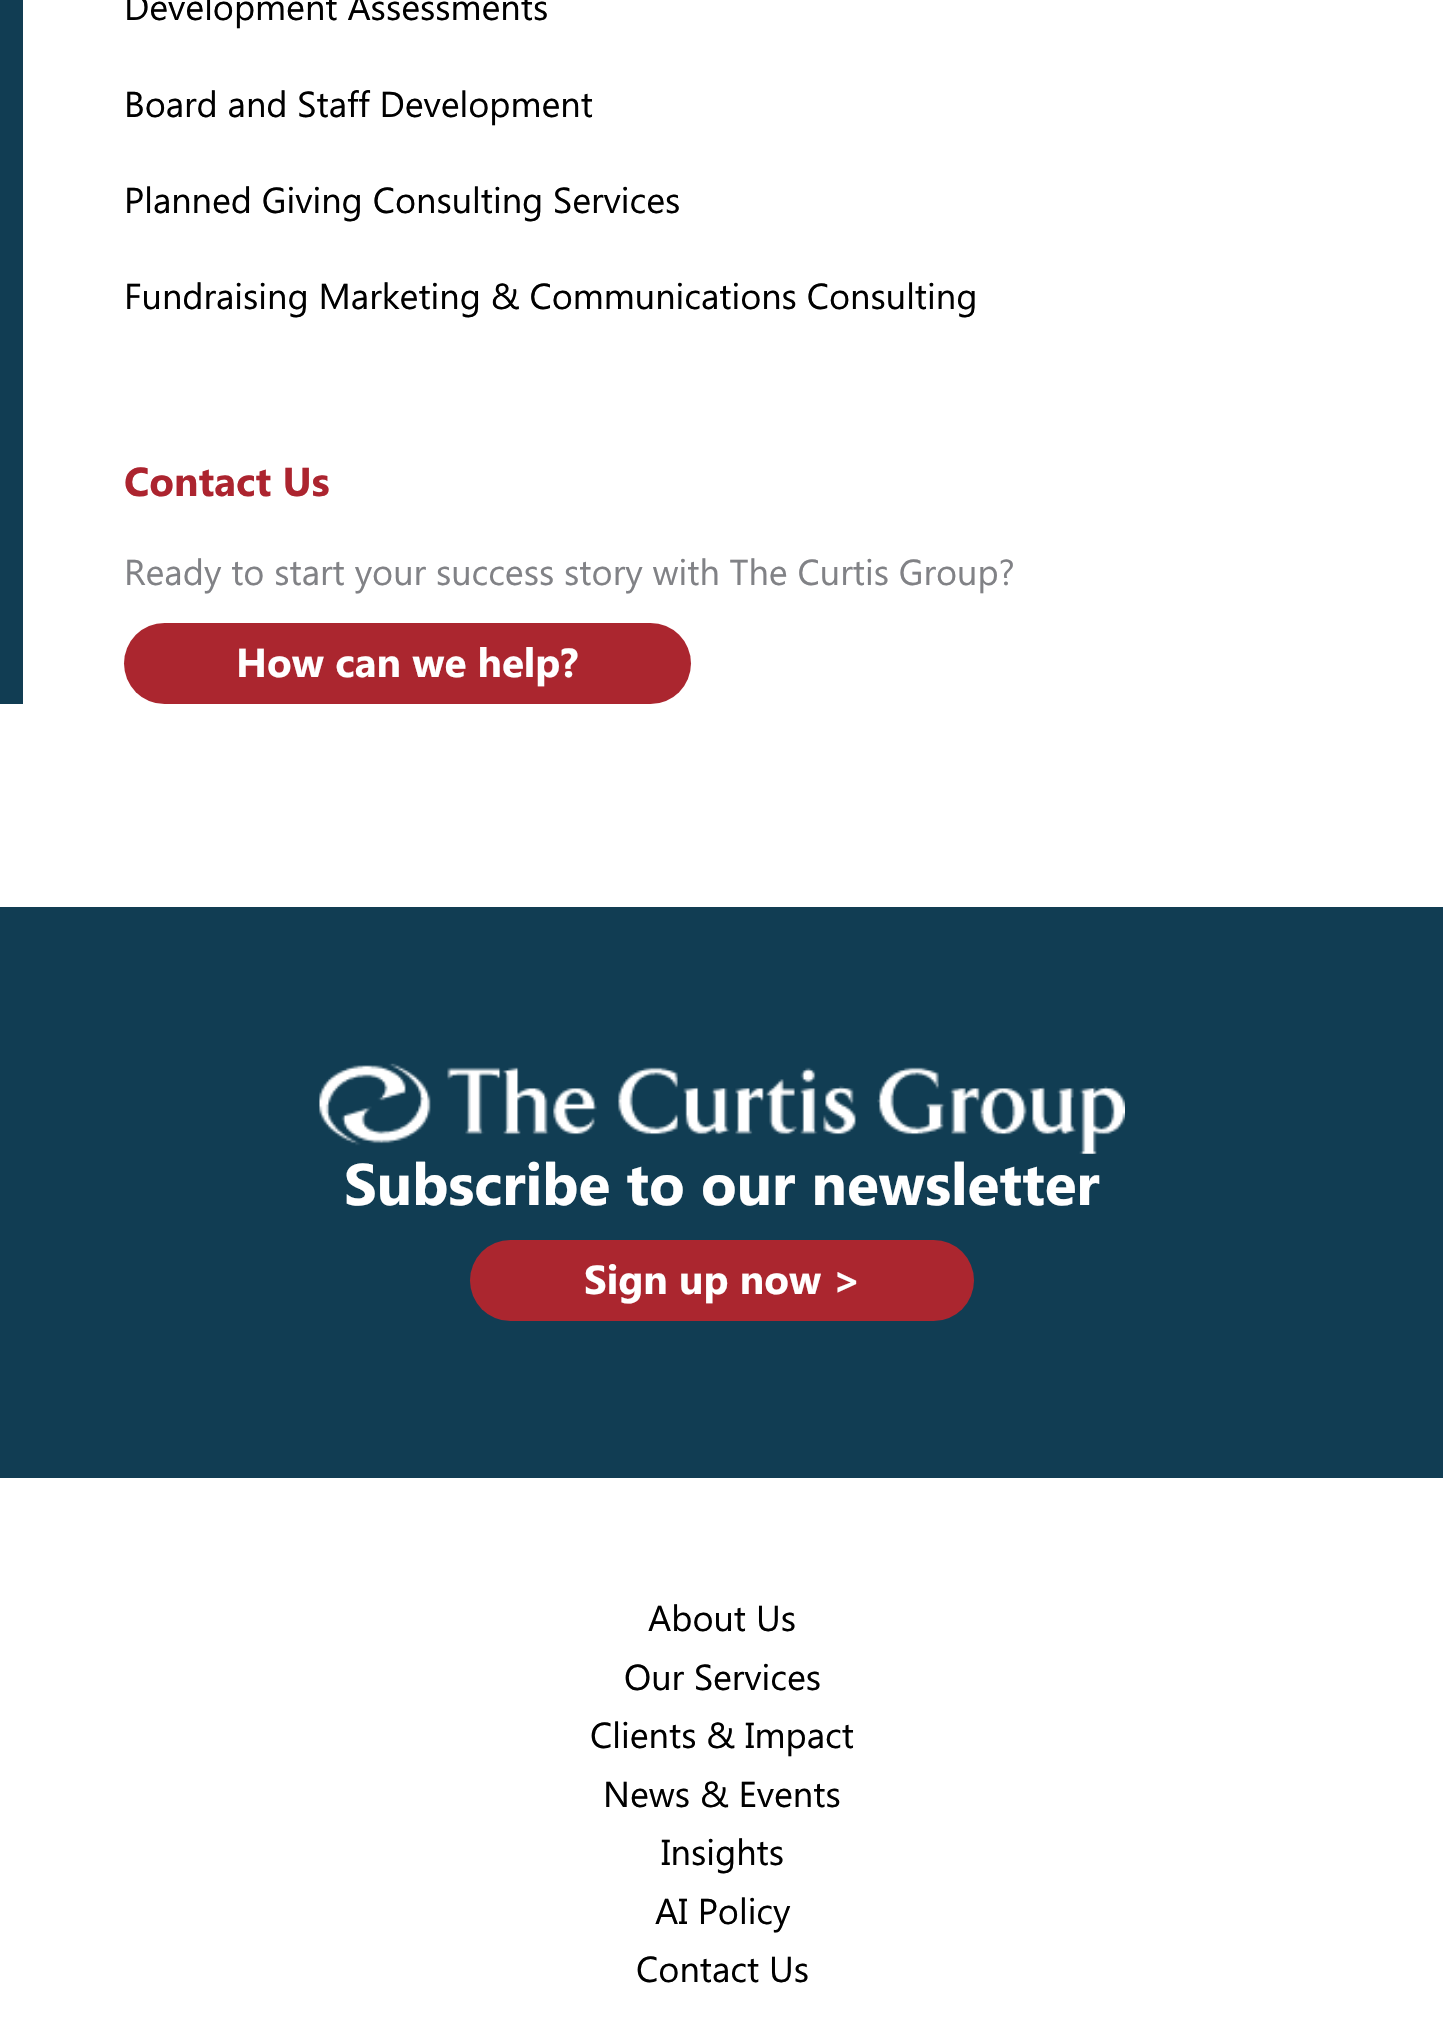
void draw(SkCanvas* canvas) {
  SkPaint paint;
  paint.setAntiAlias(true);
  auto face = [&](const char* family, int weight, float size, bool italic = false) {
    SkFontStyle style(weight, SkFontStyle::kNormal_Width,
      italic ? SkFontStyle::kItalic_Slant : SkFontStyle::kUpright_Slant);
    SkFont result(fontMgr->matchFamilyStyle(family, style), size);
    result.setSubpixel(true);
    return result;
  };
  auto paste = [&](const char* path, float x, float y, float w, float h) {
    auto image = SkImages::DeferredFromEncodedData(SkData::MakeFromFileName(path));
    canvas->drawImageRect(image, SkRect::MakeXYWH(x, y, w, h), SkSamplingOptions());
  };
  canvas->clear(0xffffffff);
  paint.setColor(0xff113d53);
  canvas->drawRect(SkRect::MakeXYWH(0, 0, 23, 704), paint);
  paint.setColor(0xffab262f);
  canvas->drawRoundRect(SkRect::MakeXYWH(124, 623, 567, 81), 40.5f, 40.5f, paint);
  paint.setColor(0xff113d53);
  canvas->drawRect(SkRect::MakeXYWH(0, 907, 1443, 571), paint);
  paste("img/1.png", 319, 1063, 806, 91);
  paint.setColor(0xffab262f);
  canvas->drawRoundRect(SkRect::MakeXYWH(470, 1240, 504, 81), 40.5f, 40.5f, paint);
  auto f0 = face("Segoe UI", 400, 36);
  paint.setColor(0xff000000);
  {
    const struct { const char* s; float x, y; } items[] = {
      {"Development Assessments", 124, 20},
      {"Board and Staff Development", 124, 117},
      {"Planned Giving Consulting Services", 124, 213},
      {"Fundraising Marketing & Communications Consulting", 124, 309},
    };
    for (auto [s, x, y] : items) {
      canvas->drawString(s, x, y, f0, paint);
    }
  }
  auto f1 = face("Segoe UI", 700, 40.5f);
  paint.setColor(0xffac242f);
  canvas->drawString("Contact Us", 124, 496, f1, paint);
  paint.setColor(0xff818286);
  canvas->drawString("Ready to start your success story with The Curtis Group?", 124, 585, f0, paint);
  paint.setColor(0xffffffff);
  canvas->drawString("How can we help?", 236, 677, f1, paint);
  auto f2 = face("Segoe UI", 700, 58.5f);
  canvas->drawString("Subscribe to our newsletter", 344, 1205, f2, paint);
  canvas->drawString("Sign up now >", 584, 1294, f1, paint);
  paint.setColor(0xff000000);
  {
    const struct { const char* s; float x, y; } items[] = {
      {"About Us", 648, 1631},
      {"Our Services", 624, 1690},
      {"Clients & Impact", 590, 1748},
      {"News & Events", 603, 1807},
      {"Insights", 661, 1865},
      {"AI Policy", 655, 1924},
      {"Contact Us", 636, 1982},
    };
    for (auto [s, x, y] : items) {
      canvas->drawString(s, x, y, f0, paint);
    }
  }
}
